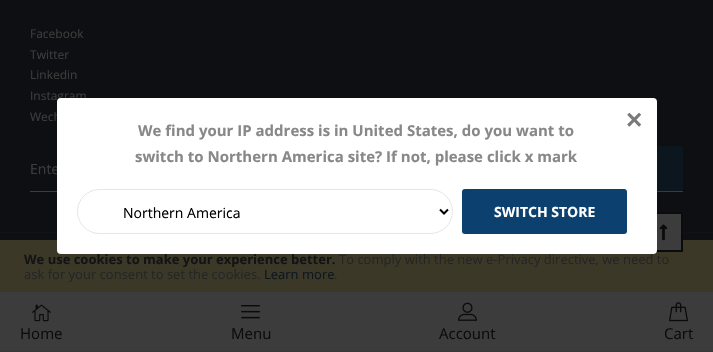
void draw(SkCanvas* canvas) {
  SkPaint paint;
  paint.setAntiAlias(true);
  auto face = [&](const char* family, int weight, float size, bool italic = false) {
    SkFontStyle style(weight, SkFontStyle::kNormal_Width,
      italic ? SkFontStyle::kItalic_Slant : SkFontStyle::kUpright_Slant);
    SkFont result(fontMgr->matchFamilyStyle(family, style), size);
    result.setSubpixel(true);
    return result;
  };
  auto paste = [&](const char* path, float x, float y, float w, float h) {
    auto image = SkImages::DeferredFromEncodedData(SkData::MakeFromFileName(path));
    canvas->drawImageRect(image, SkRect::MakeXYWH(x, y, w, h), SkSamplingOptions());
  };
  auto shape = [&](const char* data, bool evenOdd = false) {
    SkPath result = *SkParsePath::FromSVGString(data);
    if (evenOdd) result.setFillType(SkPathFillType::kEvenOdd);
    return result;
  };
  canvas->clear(0xff0e0f12);
  paint.setColor(0xff3c3c3c);
  canvas->drawRect(SkRect::MakeXYWH(30, 191, 653, 1), paint);
  paint.setColor(0xff0b161f);
  canvas->drawPath(shape("M544 146H680C681.5 146 683 147.5 683 149V188C683 189.5 681.5 191 680 191H544Z"), paint);
  {
    const struct { float x, y, w, h; SkColor color; } items[] = {
      {0, 232, 713, 1, 0xff111215},
      {0, 240, 713, 51, 0xff3c3828},
      {657, 214, 24, 36, 0xff3c3c3c},
    };
    for (auto [x, y, w, h, color] : items) {
      paint.setColor(color);
      canvas->drawRect(SkRect::MakeXYWH(x, y, w, h), paint);
    }
  }
  paint.setStroke(true);
  paint.setStrokeWidth(2);
  paint.setColor(0xff0b0b0b);
  canvas->drawRect(SkRect::MakeXYWH(644, 213, 38, 38), paint);
  paste("img/1.png", 659, 224, 9, 17);
  paint.setStroke(false);
  {
    const struct { float x, y, w, h; SkColor color; } items[] = {
      {0, 292, 713, 59, 0xff3c3c3c},
      {0, 291, 713, 1, 0xff373737},
      {0, 351, 713, 1, 0xff373737},
    };
    for (auto [x, y, w, h, color] : items) {
      paint.setColor(color);
      canvas->drawRect(SkRect::MakeXYWH(x, y, w, h), paint);
    }
  }
  paste("img/2.png", 32, 304, 19, 18);
  paste("img/3.png", 241, 305, 19, 14);
  paste("img/4.png", 458, 302, 19, 19);
  paste("img/5.png", 669, 302, 19, 20);
  auto f0 = face("Open Sans", 400, 12);
  paint.setColor(0xff3c3c3c);
  {
    const struct { const char* s; float x, y; } items[] = {
      {"Facebook", 30, 38},
      {"Twitter", 30, 59},
      {"Linkedin", 30, 79},
      {"Instagram", 30, 100},
      {"Wech", 30, 121},
    };
    for (auto [s, x, y] : items) {
      canvas->drawString(s, x, y, f0, paint);
    }
  }
  auto f1 = face("Open Sans", 400, 14);
  canvas->drawString("Ente", 30, 174, f1, paint);
  auto f2 = face("Open Sans", 400, 15);
  paint.setColor(0xff0b0b0b);
  {
    const struct { const char* s; float x, y; } items[] = {
      {"Home", 20, 339},
      {"Menu", 231, 339},
      {"Account", 439, 339},
      {"Cart", 664, 339},
    };
    for (auto [s, x, y] : items) {
      canvas->drawString(s, x, y, f2, paint);
    }
  }
  paint.setColor(0xffffffff);
  canvas->drawRoundRect(SkRect::MakeXYWH(57, 98, 600, 156), 4, 4, paint);
  auto f3 = face("Liberation Sans", 700, 28);
  paint.setColor(0xff7a7a7a);
  canvas->drawString("×", 626, 129, f3, paint);
  auto f4 = face("Open Sans", 700, 15);
  paint.setColor(0xff888888);
  canvas->drawString("We find your IP address is in United States, do you want to", 138, 136, f4, paint);
  canvas->drawString("switch to Northern America site? If not, please click x mark", 135, 162, f4, paint);
  paint.setStroke(true);
  paint.setStrokeWidth(1);
  paint.setColor(0xffe6e6e6);
  canvas->drawRoundRect(SkRect::MakeXYWH(77.5f, 189.5f, 375, 44), 22, 22, paint);
  paint.setStrokeWidth(2);
  paint.setColor(0xff000000);
  canvas->drawPath(shape("M440 209.5L444 213.5L448 209.5"), paint);
  paint.setStroke(false);
  canvas->drawString("Northern America", 123, 218, f1, paint);
  paint.setColor(0xff0c416f);
  canvas->drawRoundRect(SkRect::MakeXYWH(462, 189, 165, 45), 3, 3, paint);
  auto f5 = face("Open Sans", 700, 14);
  paint.setColor(0xffffffff);
  canvas->drawString("SWITCH STORE", 494, 217, f5, paint);
  auto f6 = face("Open Sans", 700, 13);
  paint.setColor(0xff131313);
  canvas->drawString("We use cookies to make your experience better.", 24, 264, f6, paint);
  auto f7 = face("Open Sans", 400, 13);
  paint.setColor(0xff242424);
  canvas->drawString("To comply with the new e-Privacy directive, we need to", 339, 264, f7, paint);
  canvas->drawString("ask for your consent to set the cookies.", 24, 279, f7, paint);
  paint.setColor(0xff0b161f);
  canvas->drawString("Learn more", 264, 279, f7, paint);
  paint.setColor(0xff242424);
  canvas->drawString(".", 334, 279, f7, paint);
}
